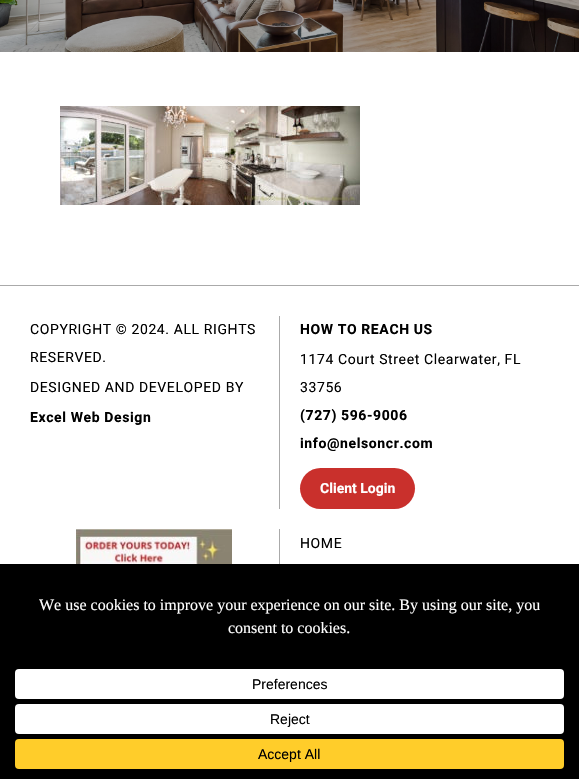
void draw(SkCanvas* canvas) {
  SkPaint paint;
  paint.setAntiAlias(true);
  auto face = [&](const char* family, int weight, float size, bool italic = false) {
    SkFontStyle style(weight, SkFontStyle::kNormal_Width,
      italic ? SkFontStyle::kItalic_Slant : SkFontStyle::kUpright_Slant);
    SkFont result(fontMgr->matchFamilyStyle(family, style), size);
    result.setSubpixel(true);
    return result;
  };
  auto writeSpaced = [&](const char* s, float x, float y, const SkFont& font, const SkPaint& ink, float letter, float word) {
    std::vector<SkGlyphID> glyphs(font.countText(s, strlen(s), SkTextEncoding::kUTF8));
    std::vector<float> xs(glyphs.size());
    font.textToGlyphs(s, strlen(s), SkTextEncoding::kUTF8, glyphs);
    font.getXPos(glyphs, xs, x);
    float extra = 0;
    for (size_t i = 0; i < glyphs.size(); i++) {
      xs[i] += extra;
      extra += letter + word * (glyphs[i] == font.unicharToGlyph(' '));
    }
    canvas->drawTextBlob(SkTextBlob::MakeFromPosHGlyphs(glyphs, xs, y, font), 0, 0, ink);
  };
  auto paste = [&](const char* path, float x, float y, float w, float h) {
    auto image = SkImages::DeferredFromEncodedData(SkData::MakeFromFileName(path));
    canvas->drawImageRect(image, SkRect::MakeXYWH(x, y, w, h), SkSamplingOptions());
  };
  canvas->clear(0xffffffff);
  paste("img/1.png", 0, 0, 579, 52);
  paste("img/2.png", 60, 106, 300, 99);
  paint.setColor(0xffaaaaaa);
  canvas->drawRect(SkRect::MakeXYWH(0, 285, 579, 1), paint);
  canvas->drawRect(SkRect::MakeXYWH(279, 316, 1, 193), paint);
  paint.setColor(0xffc9302c);
  canvas->drawRoundRect(SkRect::MakeXYWH(300, 468, 115, 41), 20.5f, 20.5f, paint);
  paint.setColor(0xffaaaaaa);
  canvas->drawRect(SkRect::MakeXYWH(279, 529, 1, 35), paint);
  paste("img/3.png", 76, 529, 156, 35);
  paint.setColor(0xff000000);
  canvas->drawRect(SkRect::MakeXYWH(0, 564, 579, 215), paint);
  paint.setColor(0xffffffff);
  canvas->drawRoundRect(SkRect::MakeXYWH(15, 669, 549, 30), 4, 4, paint);
  canvas->drawRoundRect(SkRect::MakeXYWH(15, 704, 549, 30), 4, 4, paint);
  paint.setColor(0xffffcd2a);
  canvas->drawRoundRect(SkRect::MakeXYWH(15, 739, 549, 30), 4, 4, paint);
  auto f0 = face("Heebo", 400, 14);
  paint.setColor(0xff000000);
  {
    const struct { const char* s; float x, y; } items[] = {
      {"COPYRIGHT © 2024. ALL RIGHTS", 30, 334},
      {"RESERVED.", 30, 362},
      {"DESIGNED AND DEVELOPED BY", 30, 392},
    };
    for (auto [s, x, y] : items) {
      writeSpaced(s, x, y, f0, paint, 0.6f, 0);
    }
  }
  auto f1 = face("Heebo", 700, 14);
  writeSpaced("Excel Web Design", 30, 422, f1, paint, 0.6f, 0);
  writeSpaced("HOW TO REACH US", 300, 334, f1, paint, 0.6f, 0);
  writeSpaced("1174 Court Street Clearwater, FL", 300, 364, f0, paint, 0.6f, 0);
  writeSpaced("33756", 300, 392, f0, paint, 0.6f, 0);
  writeSpaced("(727) 596-9006", 300, 420, f1, paint, 0.6f, 0);
  writeSpaced("info@nelsoncr.com", 300, 448, f1, paint, 0.6f, 0);
  paint.setColor(0xffffffff);
  canvas->drawString("Client Login", 320, 493, f1, paint);
  paint.setColor(0xff000000);
  writeSpaced("HOME", 300, 548, f0, paint, 0.6f, 0);
  auto f2 = face("Liberation Serif", 400, 16);
  paint.setColor(0xffffffff);
  canvas->drawString("We use cookies to improve your experience on our site. By using our site, you", 39, 610, f2, paint);
  canvas->drawString("consent to cookies.", 228, 633, f2, paint);
  auto f3 = face("Liberation Sans", 400, 14);
  paint.setColor(0xff000000);
  {
    const struct { const char* s; float x, y; } items[] = {
      {"Preferences", 252, 689},
      {"Reject", 270, 724},
      {"Accept All", 258, 759},
    };
    for (auto [s, x, y] : items) {
      canvas->drawString(s, x, y, f3, paint);
    }
  }
}
